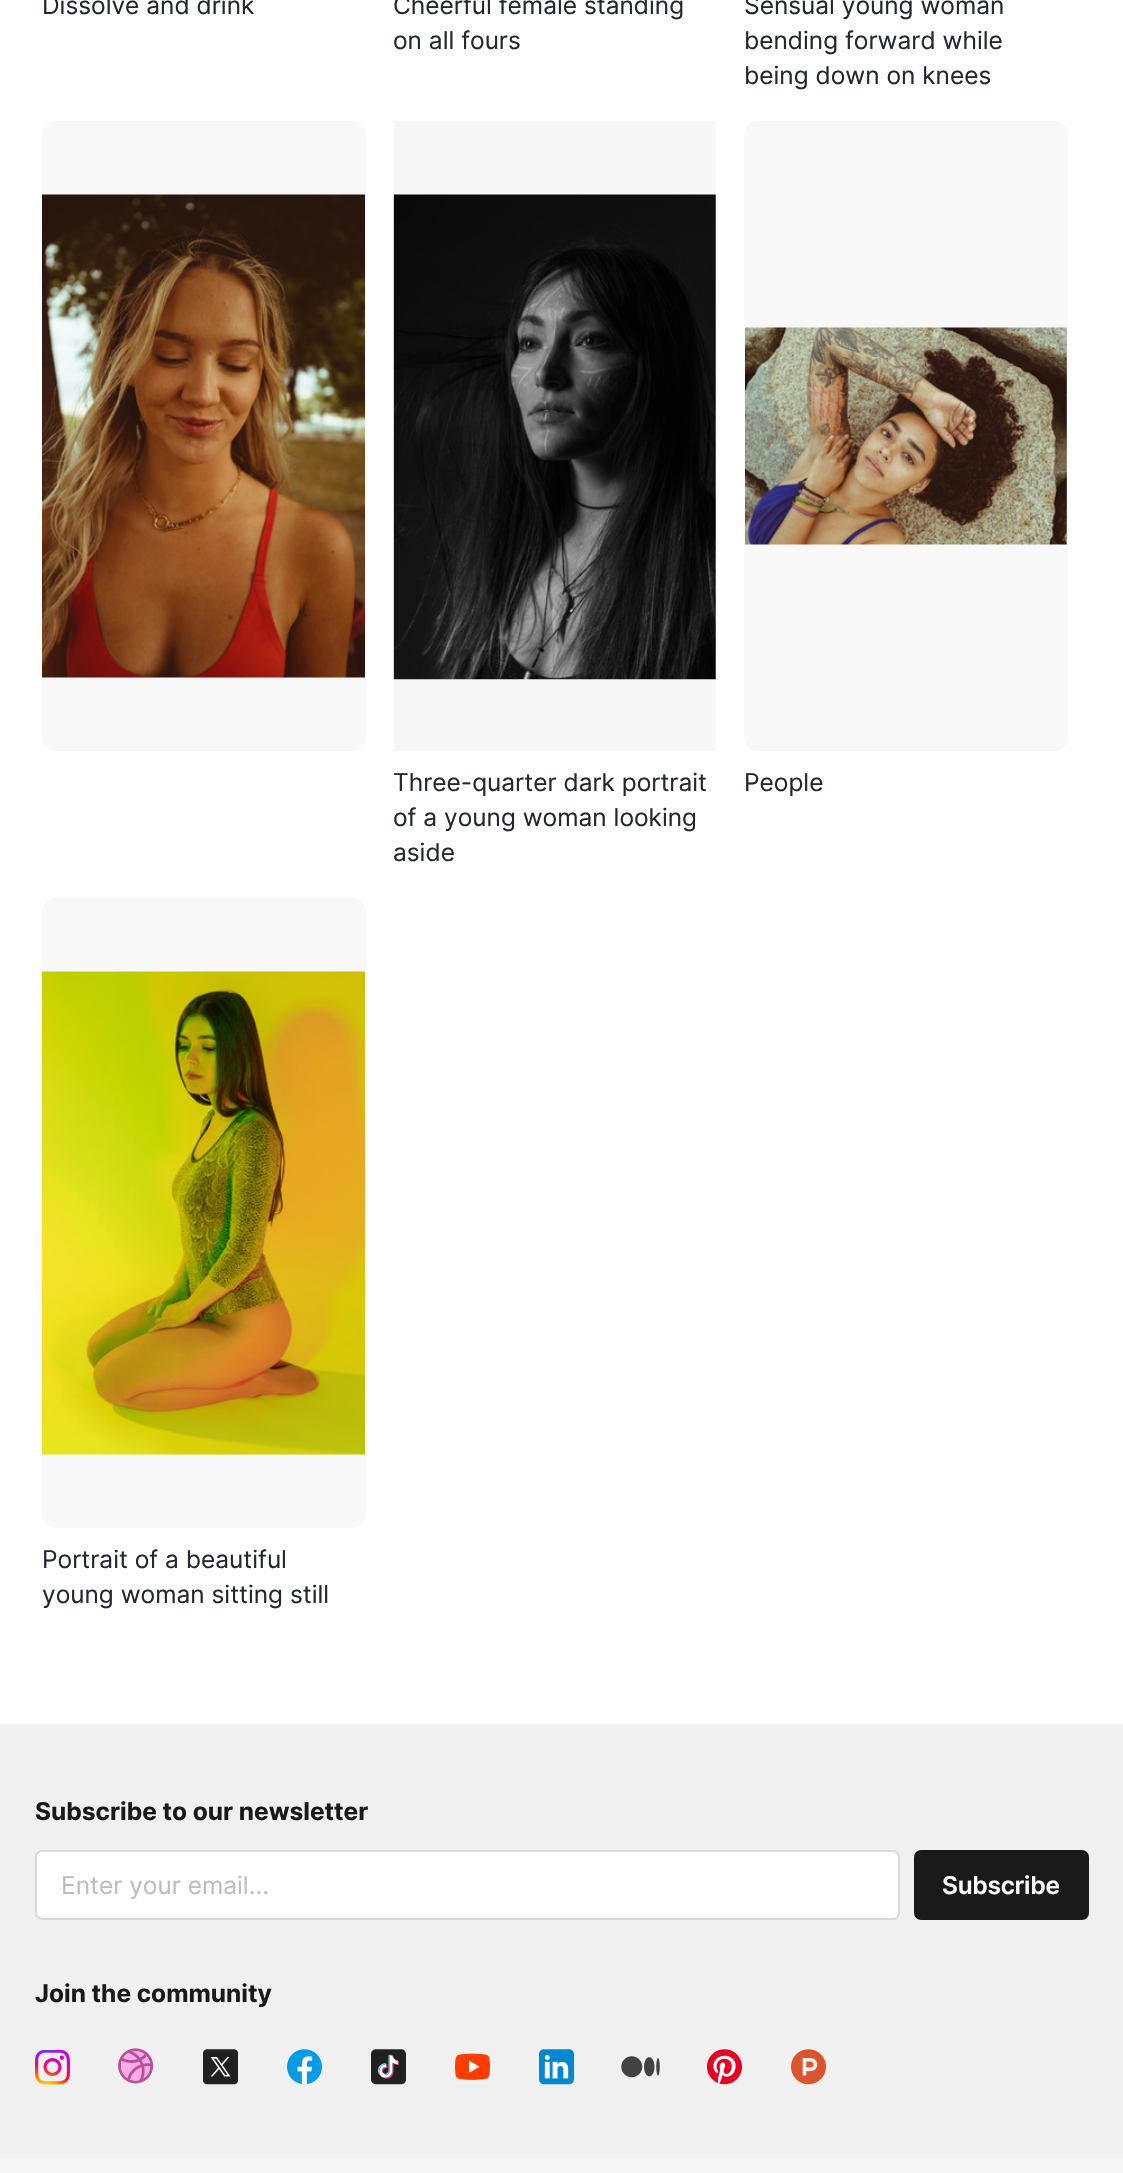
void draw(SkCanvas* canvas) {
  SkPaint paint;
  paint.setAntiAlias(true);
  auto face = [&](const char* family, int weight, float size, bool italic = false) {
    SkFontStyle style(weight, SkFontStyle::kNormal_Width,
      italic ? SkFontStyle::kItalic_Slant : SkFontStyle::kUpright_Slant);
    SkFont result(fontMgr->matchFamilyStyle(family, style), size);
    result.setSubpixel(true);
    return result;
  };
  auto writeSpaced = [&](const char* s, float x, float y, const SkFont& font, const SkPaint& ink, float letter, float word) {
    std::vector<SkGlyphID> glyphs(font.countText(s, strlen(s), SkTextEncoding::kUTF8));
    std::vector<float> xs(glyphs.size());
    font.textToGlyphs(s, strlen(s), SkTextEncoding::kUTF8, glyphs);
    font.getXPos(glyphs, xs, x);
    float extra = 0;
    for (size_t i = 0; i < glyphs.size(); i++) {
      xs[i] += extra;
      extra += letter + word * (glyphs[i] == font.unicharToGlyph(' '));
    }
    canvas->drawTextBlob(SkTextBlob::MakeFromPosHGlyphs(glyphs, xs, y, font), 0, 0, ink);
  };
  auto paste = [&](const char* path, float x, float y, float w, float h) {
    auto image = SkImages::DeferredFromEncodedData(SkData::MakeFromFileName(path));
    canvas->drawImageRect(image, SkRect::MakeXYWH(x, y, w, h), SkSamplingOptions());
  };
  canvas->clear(0xffffffff);
  paint.setColor(0xfff8f8f8);
  canvas->drawRoundRect(SkRect::MakeXYWH(42, 121, 324, 630), 14, 14, paint);
  paste("img/1.png", 42, 194, 324, 484);
  paint.setColor(0x08000000);
  canvas->drawRect(SkRect::MakeXYWH(394, 121, 322, 630), paint);
  paste("img/2.png", 393, 194, 323, 486);
  paint.setColor(0xfff8f8f8);
  canvas->drawRoundRect(SkRect::MakeXYWH(744, 121, 324, 630), 14, 14, paint);
  paste("img/3.png", 745, 327, 322, 218);
  canvas->drawRoundRect(SkRect::MakeXYWH(42, 898, 324, 630), 14, 14, paint);
  paste("img/4.png", 42, 971, 324, 484);
  paint.setColor(0xfff7f7f7);
  canvas->drawRect(SkRect::MakeXYWH(0, 2158, 1123, 15), paint);
  paint.setColor(0xfff0f0f0);
  canvas->drawRect(SkRect::MakeXYWH(0, 1724, 1123, 434), paint);
  paint.setColor(0xffffffff);
  canvas->drawRoundRect(SkRect::MakeXYWH(36, 1851, 863, 68), 6, 6, paint);
  paint.setStroke(true);
  paint.setStrokeWidth(2);
  paint.setColor(0xffd9d9d9);
  canvas->drawRoundRect(SkRect::MakeXYWH(36, 1851, 863, 68), 6, 6, paint);
  paint.setStroke(false);
  paint.setColor(0xff1a1a1a);
  canvas->drawRoundRect(SkRect::MakeXYWH(914, 1850, 175, 70), 7, 7, paint);
  paste("img/5.png", 35, 2050, 35, 35);
  paste("img/6.png", 118, 2048, 36, 36);
  paste("img/7.png", 203, 2049, 35, 36);
  paste("img/8.png", 287, 2049, 35, 36);
  paste("img/9.png", 371, 2049, 35, 36);
  paste("img/10.png", 455, 2053, 36, 27);
  paste("img/11.png", 539, 2049, 35, 36);
  paste("img/12.png", 621, 2056, 39, 22);
  paste("img/13.png", 707, 2049, 35, 36);
  paste("img/14.png", 791, 2049, 35, 36);
  auto f0 = face("Inter", 400, 24.5f);
  paint.setColor(0xff212831);
  {
    const struct { const char* s; float x, y; } items[] = {
      {"Dissolve and drink", 42, 14},
      {"Cheerful female standing", 393, 14},
      {"on all fours", 393, 49},
      {"Sensual young woman", 744, 14},
      {"bending forward while", 744, 49},
      {"being down on knees", 744, 84},
      {"Three-quarter dark portrait", 393, 791},
      {"of a young woman looking", 393, 826},
      {"aside", 393, 861},
      {"People", 744, 791},
      {"Portrait of a beautiful", 42, 1568},
      {"young woman sitting still", 42, 1603},
    };
    for (auto [s, x, y] : items) {
      canvas->drawString(s, x, y, f0, paint);
    }
  }
  auto f1 = face("Inter", 700, 24.5f);
  paint.setColor(0xff1a1a1a);
  canvas->drawString("Subscribe to our newsletter", 35, 1820, f1, paint);
  paint.setColor(0xffbdbdbd);
  canvas->drawString("Enter your email...", 61, 1894, f0, paint);
  auto f2 = face("Inter", 600, 24.5f);
  paint.setColor(0xffffffff);
  writeSpaced("Subscribe", 942, 1894, f2, paint, -0.25f, 0);
  paint.setColor(0xff1a1a1a);
  canvas->drawString("Join the community", 35, 2002, f1, paint);
}
